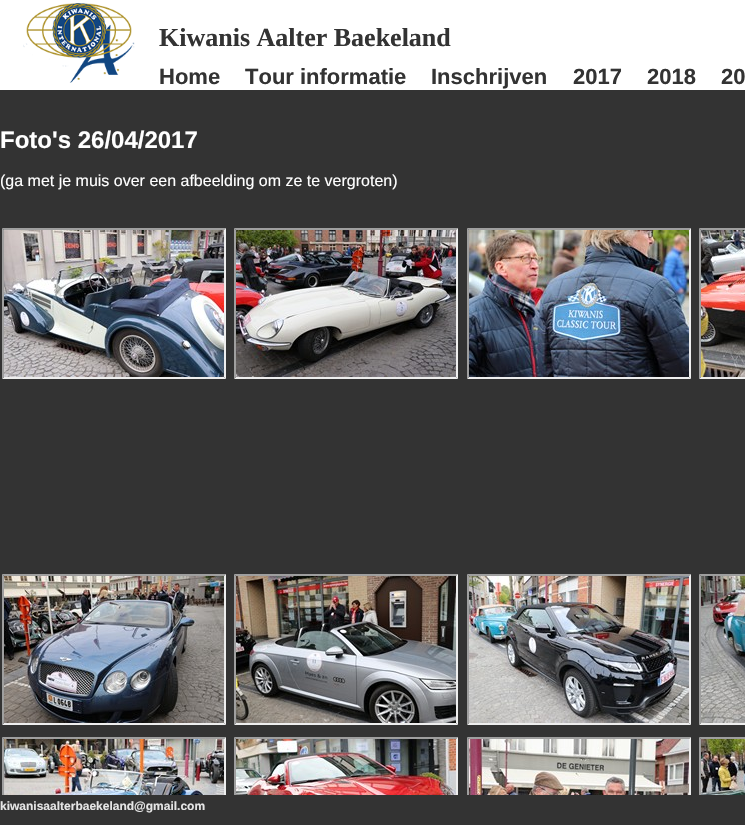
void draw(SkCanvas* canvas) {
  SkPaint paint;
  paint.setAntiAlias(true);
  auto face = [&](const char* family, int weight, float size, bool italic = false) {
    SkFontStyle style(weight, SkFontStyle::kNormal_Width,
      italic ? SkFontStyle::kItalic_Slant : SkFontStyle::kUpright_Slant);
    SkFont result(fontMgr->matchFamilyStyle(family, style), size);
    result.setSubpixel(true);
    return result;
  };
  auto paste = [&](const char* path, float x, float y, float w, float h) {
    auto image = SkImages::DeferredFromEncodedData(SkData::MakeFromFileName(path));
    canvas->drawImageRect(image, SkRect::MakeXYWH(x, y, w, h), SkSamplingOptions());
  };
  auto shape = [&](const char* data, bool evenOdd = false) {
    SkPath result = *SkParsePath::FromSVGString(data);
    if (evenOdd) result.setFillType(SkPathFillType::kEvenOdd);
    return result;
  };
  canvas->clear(0xffffffff);
  paste("img/1.png", 23, 3, 112, 80);
  paint.setColor(0xff333333);
  canvas->drawRect(SkRect::MakeXYWH(0, 90, 745, 705), paint);
  paint.setColor(0xff9f9f9f);
  canvas->drawPath(shape("M2 228H226L224 230H4Z"), paint);
  paint.setColor(0xffeeeeee);
  canvas->drawPath(shape("M226 228V379L224 377V230Z"), paint);
  canvas->drawPath(shape("M226 379H2L4 377H224Z"), paint);
  paint.setColor(0xff9f9f9f);
  canvas->drawPath(shape("M2 379V228L4 230V377Z"), paint);
  canvas->drawPath(shape("M234 228H458L456 230H236Z"), paint);
  paint.setColor(0xffeeeeee);
  canvas->drawPath(shape("M458 228V379L456 377V230Z"), paint);
  canvas->drawPath(shape("M458 379H234L236 377H456Z"), paint);
  paint.setColor(0xff9f9f9f);
  canvas->drawPath(shape("M234 379V228L236 230V377Z"), paint);
  canvas->drawPath(shape("M467 228H691L689 230H469Z"), paint);
  paint.setColor(0xffeeeeee);
  canvas->drawPath(shape("M691 228V379L689 377V230Z"), paint);
  canvas->drawPath(shape("M691 379H467L469 377H689Z"), paint);
  paint.setColor(0xff9f9f9f);
  canvas->drawPath(shape("M467 379V228L469 230V377Z"), paint);
  canvas->drawPath(shape("M699 228H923L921 230H701Z"), paint);
  paste("img/2.png", 4, 230, 220, 147);
  paste("img/3.png", 236, 230, 220, 147);
  paste("img/4.png", 469, 230, 220, 147);
  paint.setColor(0xffeeeeee);
  canvas->drawPath(shape("M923 379H699L701 377H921Z"), paint);
  paint.setColor(0xff9f9f9f);
  canvas->drawPath(shape("M699 379V228L701 230V377Z"), paint);
  paste("img/5.png", 701, 230, 44, 147);
  canvas->drawPath(shape("M2 574H226L224 576H4Z"), paint);
  paint.setColor(0xffeeeeee);
  canvas->drawPath(shape("M226 574V725L224 723V576Z"), paint);
  canvas->drawPath(shape("M226 725H2L4 723H224Z"), paint);
  paint.setColor(0xff9f9f9f);
  canvas->drawPath(shape("M2 725V574L4 576V723Z"), paint);
  canvas->drawPath(shape("M234 574H458L456 576H236Z"), paint);
  paint.setColor(0xffeeeeee);
  canvas->drawPath(shape("M458 574V725L456 723V576Z"), paint);
  canvas->drawPath(shape("M458 725H234L236 723H456Z"), paint);
  paint.setColor(0xff9f9f9f);
  canvas->drawPath(shape("M234 725V574L236 576V723Z"), paint);
  canvas->drawPath(shape("M467 574H691L689 576H469Z"), paint);
  paint.setColor(0xffeeeeee);
  canvas->drawPath(shape("M691 574V725L689 723V576Z"), paint);
  canvas->drawPath(shape("M691 725H467L469 723H689Z"), paint);
  paint.setColor(0xff9f9f9f);
  canvas->drawPath(shape("M467 725V574L469 576V723Z"), paint);
  canvas->drawPath(shape("M699 574H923L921 576H701Z"), paint);
  paste("img/6.png", 4, 576, 220, 147);
  paste("img/7.png", 236, 576, 220, 147);
  paste("img/8.png", 469, 576, 220, 147);
  paint.setColor(0xffeeeeee);
  canvas->drawPath(shape("M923 725H699L701 723H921Z"), paint);
  paint.setColor(0xff9f9f9f);
  canvas->drawPath(shape("M699 725V574L701 576V723Z"), paint);
  paste("img/9.png", 701, 576, 44, 147);
  canvas->drawPath(shape("M2 737H226L224 739H4Z"), paint);
  canvas->drawPath(shape("M2 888V737L4 739V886Z"), paint);
  paint.setColor(0xffeeeeee);
  canvas->drawPath(shape("M226 737V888L224 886V739Z"), paint);
  paint.setColor(0xff9f9f9f);
  canvas->drawPath(shape("M234 737H458L456 739H236Z"), paint);
  canvas->drawPath(shape("M234 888V737L236 739V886Z"), paint);
  paint.setColor(0xffeeeeee);
  canvas->drawPath(shape("M458 737V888L456 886V739Z"), paint);
  paint.setColor(0xff9f9f9f);
  canvas->drawPath(shape("M467 737H691L689 739H469Z"), paint);
  canvas->drawPath(shape("M467 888V737L469 739V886Z"), paint);
  paint.setColor(0xffeeeeee);
  canvas->drawPath(shape("M691 737V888L689 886V739Z"), paint);
  paint.setColor(0xff9f9f9f);
  canvas->drawPath(shape("M699 737H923L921 739H701Z"), paint);
  paste("img/10.png", 4, 739, 220, 56);
  paste("img/11.png", 236, 739, 220, 56);
  paste("img/12.png", 469, 739, 220, 56);
  canvas->drawPath(shape("M699 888V737L701 739V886Z"), paint);
  paste("img/13.png", 701, 739, 44, 56);
  paint.setColor(0xff333333);
  canvas->drawRect(SkRect::MakeXYWH(0, 795, 745, 30), paint);
  auto f0 = face("Liberation Serif", 700, 26);
  canvas->drawString("Kiwanis Aalter Baekeland", 159, 46, f0, paint);
  auto f1 = face("Liberation Sans", 700, 22);
  {
    const struct { const char* s; float x, y; } items[] = {
      {"Home", 159, 84},
      {"Tour informatie", 245, 84},
      {"Inschrijven", 431, 84},
      {"2017", 573, 84},
      {"2018", 647, 84},
      {"20", 721, 84},
    };
    for (auto [s, x, y] : items) {
      canvas->drawString(s, x, y, f1, paint);
    }
  }
  auto f2 = face("Liberation Sans", 700, 24);
  paint.setColor(0xffffffff);
  canvas->drawString("Foto's 26/04/2017", 0, 148, f2, paint);
  auto f3 = face("Liberation Sans", 400, 16);
  canvas->drawString("(ga met je muis over een afbeelding om ze te vergroten)", 0, 186, f3, paint);
  auto f4 = face("Liberation Sans", 700, 12);
  paint.setColor(0xffe6e6e6);
  canvas->drawString("kiwanisaalterbaekeland@gmail.com", 0, 810, f4, paint);
}
